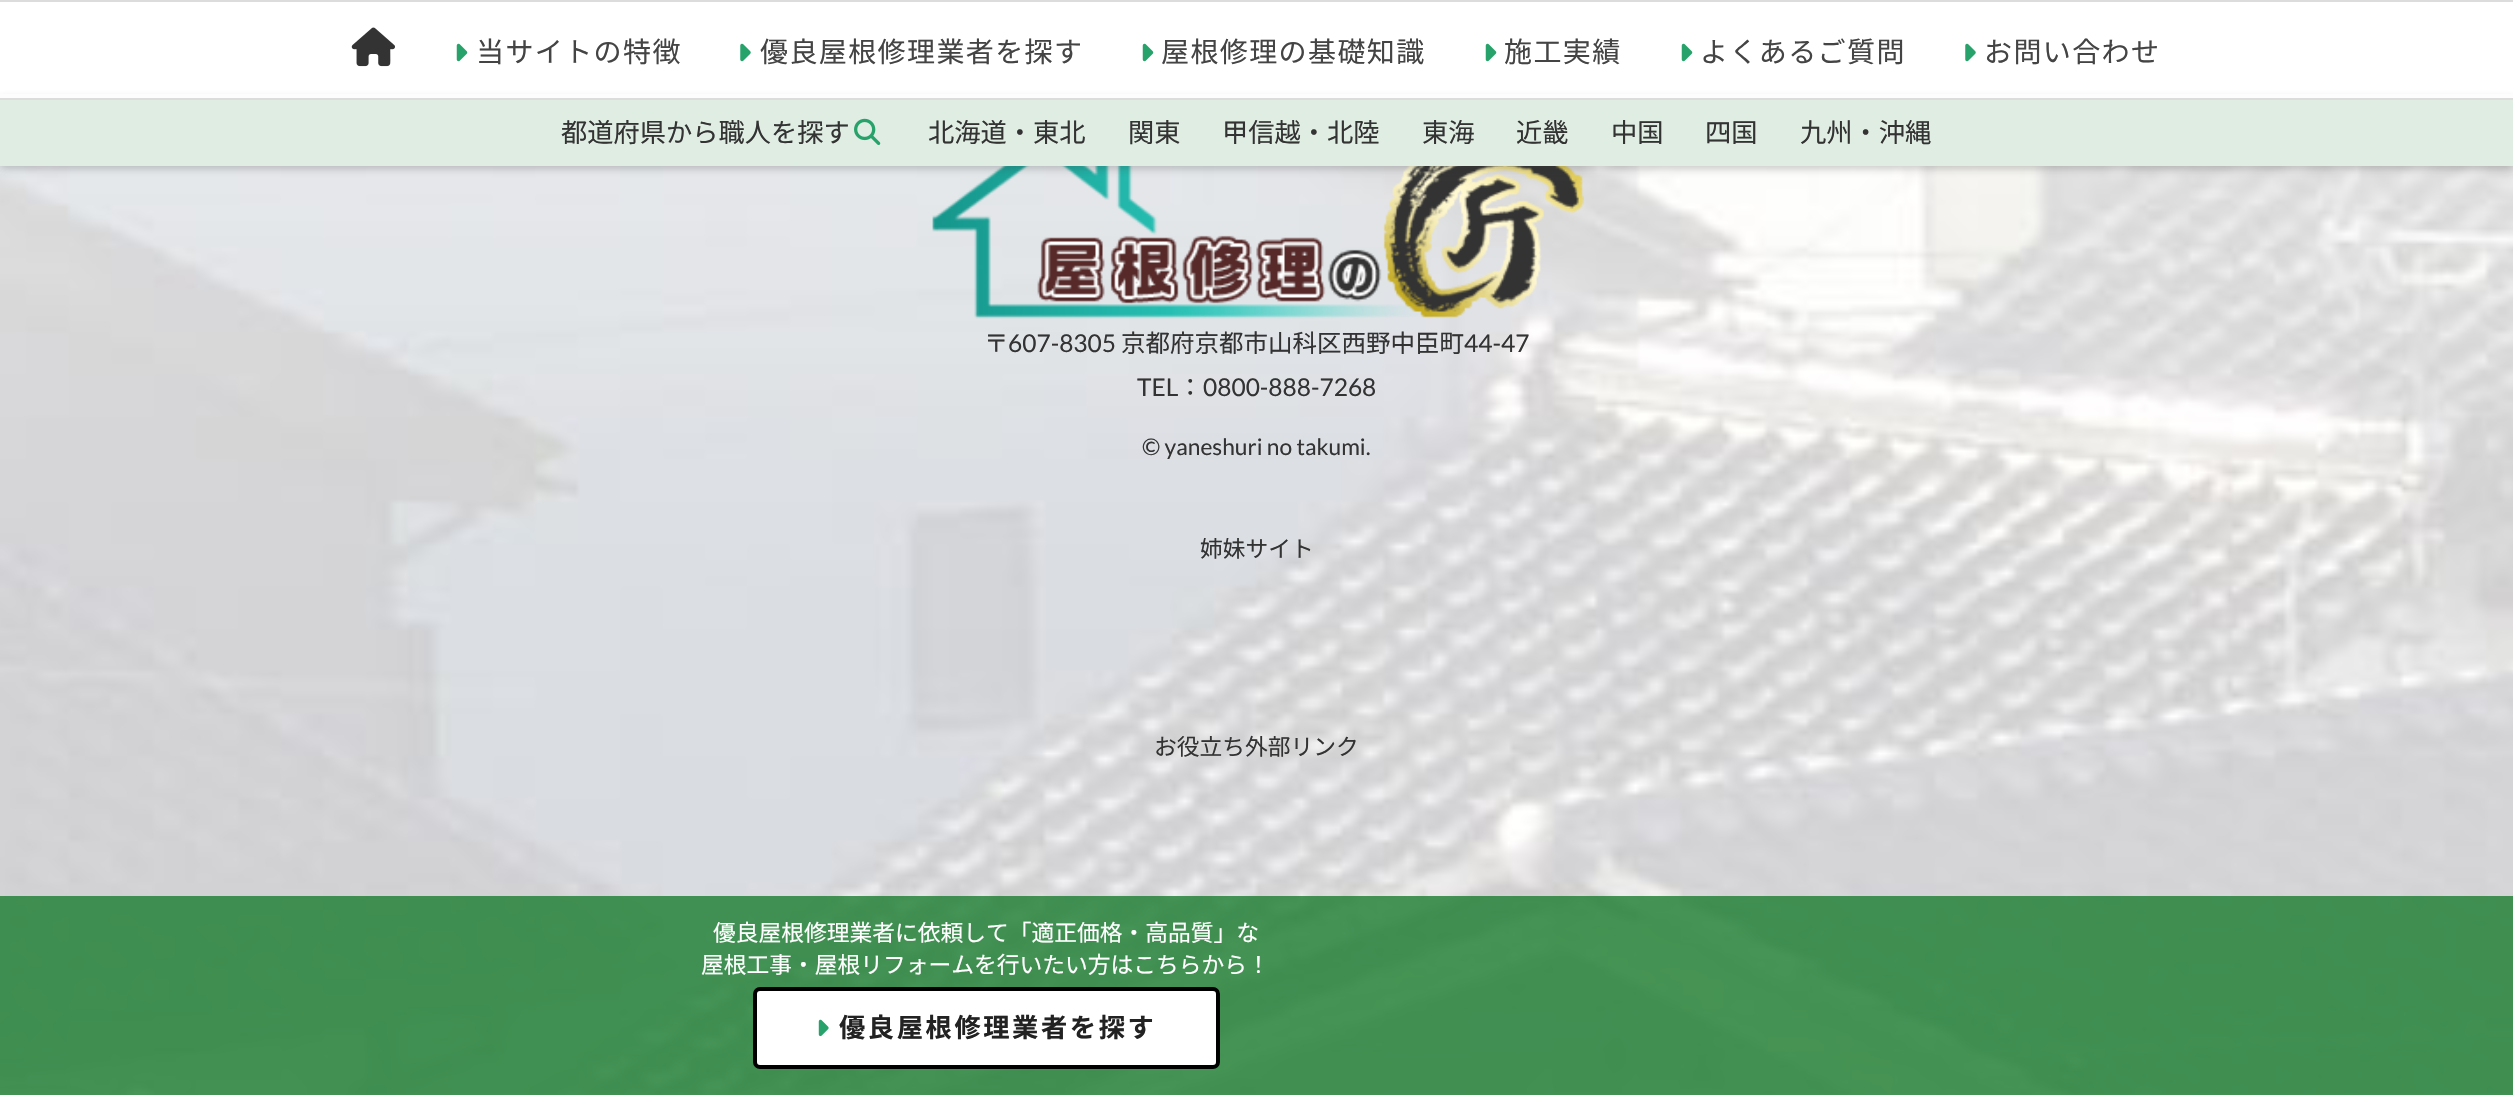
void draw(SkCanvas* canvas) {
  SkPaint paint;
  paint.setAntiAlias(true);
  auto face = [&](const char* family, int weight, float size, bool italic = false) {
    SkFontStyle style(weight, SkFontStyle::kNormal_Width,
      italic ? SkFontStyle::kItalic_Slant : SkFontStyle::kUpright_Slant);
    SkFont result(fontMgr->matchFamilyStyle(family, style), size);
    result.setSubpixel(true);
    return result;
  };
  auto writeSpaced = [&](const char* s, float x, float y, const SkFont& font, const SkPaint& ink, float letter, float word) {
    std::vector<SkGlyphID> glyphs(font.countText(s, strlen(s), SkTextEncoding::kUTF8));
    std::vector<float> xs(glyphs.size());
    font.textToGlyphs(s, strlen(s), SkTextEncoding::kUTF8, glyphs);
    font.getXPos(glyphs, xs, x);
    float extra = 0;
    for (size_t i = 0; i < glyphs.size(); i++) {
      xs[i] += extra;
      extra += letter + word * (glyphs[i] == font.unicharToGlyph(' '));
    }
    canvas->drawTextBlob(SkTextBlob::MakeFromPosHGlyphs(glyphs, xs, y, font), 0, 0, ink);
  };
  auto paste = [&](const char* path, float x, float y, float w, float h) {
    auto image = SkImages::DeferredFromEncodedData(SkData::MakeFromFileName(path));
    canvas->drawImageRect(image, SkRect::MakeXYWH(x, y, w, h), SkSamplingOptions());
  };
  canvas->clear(0xffffffff);
  paste("img/5.png", 0, 166, 2513, 929);
  paste("img/6.png", 932, 166, 652, 153);
  paint.setColor(0x4d333333);
  paint.setMaskFilter(SkMaskFilter::MakeBlur(kNormal_SkBlurStyle, 4.5f));
  canvas->drawRect(SkRect::MakeXYWH(0, 100, 2513, 68), paint);
  paint.setMaskFilter(nullptr);
  {
    const struct { float x, y, w, h; SkColor color; } items[] = {
      {0, 94, 2513, 4, 0xfffdfdfd},
      {0, 0, 2513, 2, 0xffdcdcdc},
      {0, 98, 2513, 2, 0xffdcdcdc},
    };
    for (auto [x, y, w, h, color] : items) {
      paint.setColor(color);
      canvas->drawRect(SkRect::MakeXYWH(x, y, w, h), paint);
    }
  }
  paste("img/1.png", 351, 27, 44, 40);
  paste("img/2.png", 456, 43, 12, 19);
  paste("img/3.png", 740, 43, 11, 19);
  paste("img/2.png", 1142, 43, 12, 19);
  paste("img/2.png", 1485, 43, 12, 19);
  paste("img/2.png", 1681, 43, 12, 19);
  paste("img/3.png", 1965, 43, 11, 19);
  paint.setColor(0xffe0ede3);
  canvas->drawRect(SkRect::MakeXYWH(0, 100, 2513, 66), paint);
  paste("img/4.png", 854, 118, 27, 27);
  paint.setColor(0xcc1a7d30);
  canvas->drawRect(SkRect::MakeXYWH(0, 896, 2513, 199), paint);
  paint.setColor(0xffffffff);
  canvas->drawRoundRect(SkRect::MakeXYWH(755, 989, 463, 78), 5, 5, paint);
  paint.setStroke(true);
  paint.setStrokeWidth(4);
  paint.setColor(0xff000000);
  canvas->drawRoundRect(SkRect::MakeXYWH(755, 989, 463, 78), 5, 5, paint);
  paste("img/7.png", 818, 1019, 11, 18);
  auto f0 = face("Noto Sans JP", 400, 28);
  paint.setStroke(false);
  paint.setColor(0xff444444);
  {
    const struct { const char* s; float x, y; } items[] = {
      {"当サイトの特徴", 476, 62},
      {"優良屋根修理業者を探す", 760, 62},
      {"屋根修理の基礎知識", 1161, 62},
      {"施工実績", 1504, 62},
      {"よくあるご質問", 1700, 62},
      {"お問い合わせ", 1984, 62},
    };
    for (auto [s, x, y] : items) {
      writeSpaced(s, x, y, f0, paint, 1.4f, 0);
    }
  }
  auto f1 = face("Noto Sans JP", 400, 26.25f);
  paint.setColor(0xff333333);
  {
    const struct { const char* s; float x, y; } items[] = {
      {"都道府県から職人を探す", 561, 142},
      {"北海道・東北", 928, 142},
      {"関東", 1128, 142},
      {"甲信越・北陸", 1222, 142},
      {"東海", 1422, 142},
      {"近畿", 1516, 142},
      {"中国", 1611, 142},
      {"四国", 1705, 142},
      {"九州・沖縄", 1800, 142},
    };
    for (auto [s, x, y] : items) {
      canvas->drawString(s, x, y, f1, paint);
    }
  }
  auto f2 = face("Noto Sans JP", 400, 24.5f);
  canvas->drawString("〒", 984, 352, f2, paint);
  auto f3 = face("Lato", 400, 24.5f);
  canvas->drawString("607-8305", 1008, 352, f3, paint);
  canvas->drawString("京都府京都市山科区西野中臣町", 1121, 352, f2, paint);
  canvas->drawString("44-47", 1464, 352, f3, paint);
  canvas->drawString("TEL", 1137, 396, f3, paint);
  canvas->drawString("：", 1178, 396, f2, paint);
  canvas->drawString("0800-888-7268", 1203, 396, f3, paint);
  auto f4 = face("Lato", 400, 22.75f);
  canvas->drawString("© yaneshuri no takumi.", 1142, 455, f4, paint);
  auto f5 = face("Noto Sans JP", 400, 22.75f);
  canvas->drawString("姉妹サイト", 1200, 557, f5, paint);
  canvas->drawString("お役立ち外部リンク", 1154, 755, f5, paint);
  paint.setColor(0xffffffff);
  canvas->drawString("優良屋根修理業者に依頼して「適正価格・高品質」な", 713, 941, f5, paint);
  canvas->drawString("屋根工事・屋根リフォームを行いたい方はこちらから！", 701, 973, f5, paint);
  auto f6 = face("Noto Sans JP", 700, 26.25f);
  paint.setColor(0xff222222);
  writeSpaced("優良屋根修理業者を探す", 839, 1037, f6, paint, 2.6f, 0);
}
